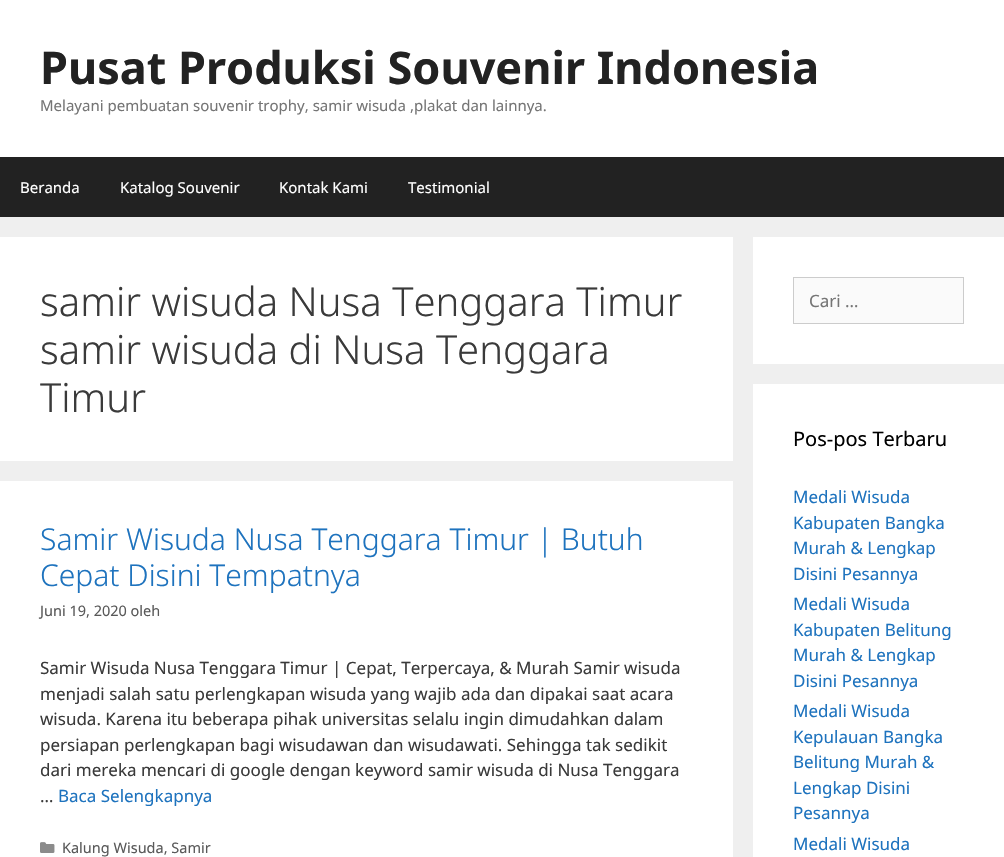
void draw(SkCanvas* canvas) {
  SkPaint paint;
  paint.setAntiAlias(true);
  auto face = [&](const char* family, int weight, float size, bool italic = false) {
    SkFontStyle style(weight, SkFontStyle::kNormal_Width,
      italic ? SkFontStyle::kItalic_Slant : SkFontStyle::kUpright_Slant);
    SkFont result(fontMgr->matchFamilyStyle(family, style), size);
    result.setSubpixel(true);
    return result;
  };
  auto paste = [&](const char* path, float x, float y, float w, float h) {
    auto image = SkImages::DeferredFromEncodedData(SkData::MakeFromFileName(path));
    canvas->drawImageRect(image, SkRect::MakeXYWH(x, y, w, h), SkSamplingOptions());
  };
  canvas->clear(0xffefefef);
  {
    const struct { float x, y, w, h; SkColor color; } items[] = {
      {0, 0, 1004, 157, 0xffffffff},
      {0, 157, 1004, 60, 0xff222222},
      {0, 237, 733, 224, 0xffffffff},
      {0, 481, 733, 376, 0xffffffff},
    };
    for (auto [x, y, w, h, color] : items) {
      paint.setColor(color);
      canvas->drawRect(SkRect::MakeXYWH(x, y, w, h), paint);
    }
  }
  paste("img/1.png", 40, 842, 15, 11);
  canvas->drawRect(SkRect::MakeXYWH(753, 237, 251, 127), paint);
  paint.setColor(0xfffafafa);
  canvas->drawRect(SkRect::MakeXYWH(793.5f, 277.5f, 170, 46), paint);
  paint.setStroke(true);
  paint.setStrokeWidth(1);
  paint.setColor(0xffcccccc);
  canvas->drawRect(SkRect::MakeXYWH(793.5f, 277.5f, 170, 46), paint);
  paint.setStroke(false);
  paint.setColor(0xffffffff);
  canvas->drawRect(SkRect::MakeXYWH(753, 384, 251, 473), paint);
  auto f0 = face("Noto Sans", 700, 45);
  paint.setColor(0xff222222);
  canvas->drawString("Pusat Produksi Souvenir Indonesia", 40, 84, f0, paint);
  auto f1 = face("Noto Sans", 400, 15);
  paint.setColor(0xff757575);
  canvas->drawString("Melayani pembuatan souvenir trophy, samir wisuda ,plakat dan lainnya.", 40, 111, f1, paint);
  paint.setColor(0xffffffff);
  {
    const struct { const char* s; float x, y; } items[] = {
      {"Beranda", 20, 193},
      {"Katalog Souvenir", 120, 193},
      {"Kontak Kami", 279, 193},
      {"Testimonial", 408, 193},
    };
    for (auto [s, x, y] : items) {
      canvas->drawString(s, x, y, f1, paint);
    }
  }
  auto f2 = face("Noto Sans", 300, 40);
  paint.setColor(0xff3a3a3a);
  {
    const struct { const char* s; float x, y; } items[] = {
      {"samir wisuda Nusa Tenggara Timur", 40, 316},
      {"samir wisuda di Nusa Tenggara", 40, 364},
      {"Timur", 40, 412},
    };
    for (auto [s, x, y] : items) {
      canvas->drawString(s, x, y, f2, paint);
    }
  }
  auto f3 = face("Noto Sans", 300, 30);
  paint.setColor(0xff1e73be);
  canvas->drawString("Samir Wisuda Nusa Tenggara Timur | Butuh", 40, 550, f3, paint);
  canvas->drawString("Cepat Disini Tempatnya", 40, 586, f3, paint);
  auto f4 = face("Noto Sans", 400, 14.5f);
  paint.setColor(0xff595959);
  canvas->drawString("Juni 19, 2020 oleh", 40, 616, f4, paint);
  auto f5 = face("Noto Sans", 400, 17);
  paint.setColor(0xff3a3a3a);
  {
    const struct { const char* s; float x, y; } items[] = {
      {"Samir Wisuda Nusa Tenggara Timur | Cepat, Terpercaya, & Murah Samir wisuda", 40, 674},
      {"menjadi salah satu perlengkapan wisuda yang wajib ada dan dipakai saat acara", 40, 700},
      {"wisuda. Karena itu beberapa pihak universitas selalu ingin dimudahkan dalam", 40, 725},
      {"persiapan perlengkapan bagi wisudawan dan wisudawati. Sehingga tak sedikit", 40, 751},
      {"dari mereka mencari di google dengan keyword samir wisuda di Nusa Tenggara", 40, 776},
      {"…", 40, 802},
    };
    for (auto [s, x, y] : items) {
      canvas->drawString(s, x, y, f5, paint);
    }
  }
  paint.setColor(0xff1e73be);
  canvas->drawString("Baca Selengkapnya", 58, 802, f5, paint);
  paint.setColor(0xff595959);
  canvas->drawString("Kalung Wisuda, Samir", 62, 853, f4, paint);
  paint.setColor(0xff757575);
  canvas->drawString("Cari …", 809, 307, f5, paint);
  auto f6 = face("Noto Sans", 400, 20);
  paint.setColor(0xff000000);
  canvas->drawString("Pos-pos Terbaru", 793, 446, f6, paint);
  paint.setColor(0xff1e73be);
  {
    const struct { const char* s; float x, y; } items[] = {
      {"Medali Wisuda", 793, 503},
      {"Kabupaten Bangka", 793, 529},
      {"Murah & Lengkap", 793, 554},
      {"Disini Pesannya", 793, 580},
      {"Medali Wisuda", 793, 610},
      {"Kabupaten Belitung", 793, 636},
      {"Murah & Lengkap", 793, 661},
      {"Disini Pesannya", 793, 687},
      {"Medali Wisuda", 793, 717},
      {"Kepulauan Bangka", 793, 743},
      {"Belitung Murah &", 793, 768},
      {"Lengkap Disini", 793, 794},
      {"Pesannya", 793, 819},
      {"Medali Wisuda", 793, 850},
    };
    for (auto [s, x, y] : items) {
      canvas->drawString(s, x, y, f5, paint);
    }
  }
}
